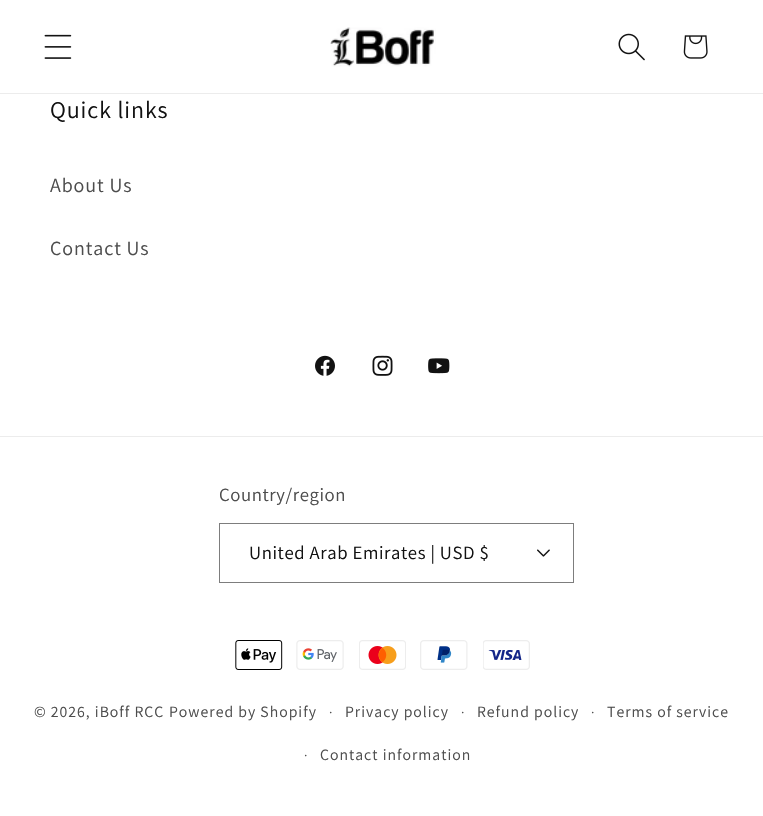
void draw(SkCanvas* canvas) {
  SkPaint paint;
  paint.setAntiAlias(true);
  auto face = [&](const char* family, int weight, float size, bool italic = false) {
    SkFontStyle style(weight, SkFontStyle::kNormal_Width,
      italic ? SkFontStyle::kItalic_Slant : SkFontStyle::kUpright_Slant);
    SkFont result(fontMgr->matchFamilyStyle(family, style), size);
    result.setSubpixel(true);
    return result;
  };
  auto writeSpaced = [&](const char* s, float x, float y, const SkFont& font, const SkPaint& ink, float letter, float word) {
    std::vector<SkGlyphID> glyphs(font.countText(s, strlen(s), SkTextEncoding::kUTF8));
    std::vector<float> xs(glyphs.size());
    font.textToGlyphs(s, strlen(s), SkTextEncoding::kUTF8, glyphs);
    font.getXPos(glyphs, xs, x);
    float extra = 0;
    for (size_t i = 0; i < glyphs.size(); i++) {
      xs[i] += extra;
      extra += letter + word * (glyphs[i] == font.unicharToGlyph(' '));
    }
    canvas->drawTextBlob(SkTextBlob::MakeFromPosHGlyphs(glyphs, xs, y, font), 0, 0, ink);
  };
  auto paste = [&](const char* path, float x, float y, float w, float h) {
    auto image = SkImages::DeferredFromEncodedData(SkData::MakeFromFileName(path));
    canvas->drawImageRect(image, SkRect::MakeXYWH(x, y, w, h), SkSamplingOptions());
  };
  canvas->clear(0xffffffff);
  paste("img/1.png", 44, 34, 28, 25);
  paste("img/2.png", 330, 27, 106, 40);
  paste("img/3.png", 618, 33, 27, 28);
  paste("img/4.png", 683, 35, 25, 24);
  paint.setColor(0xffececec);
  canvas->drawRect(SkRect::MakeXYWH(0, 93, 763, 1), paint);
  paste("img/5.png", 315, 355, 20, 21);
  paste("img/6.png", 372, 355, 21, 21);
  paste("img/7.png", 428, 358, 22, 16);
  canvas->drawRect(SkRect::MakeXYWH(0, 436, 763, 1), paint);
  paste("img/8.png", 537, 549, 13, 8);
  paint.setStroke(true);
  paint.setStrokeWidth(1);
  paint.setColor(0xff7d7d7d);
  canvas->drawRect(SkRect::MakeXYWH(219.5f, 523.5f, 354, 59), paint);
  paste("img/9.png", 235, 640, 48, 30);
  paste("img/10.png", 296, 640, 48, 30);
  paste("img/11.png", 359, 640, 47, 30);
  paste("img/12.png", 420, 640, 48, 30);
  paste("img/13.png", 483, 640, 47, 30);
  auto f0 = face("Assistant", 400, 24);
  paint.setStroke(false);
  paint.setColor(0xff121212);
  writeSpaced("Quick links", 50, 118, f0, paint, 0.9f, 0);
  auto f1 = face("Assistant", 400, 20);
  paint.setColor(0xff4d4d4d);
  writeSpaced("About Us", 50, 192, f1, paint, 0.9f, 0);
  writeSpaced("Contact Us", 50, 255, f1, paint, 0.9f, 0);
  auto f2 = face("Assistant", 400, 18.75f);
  writeSpaced("Country/region", 219, 501, f2, paint, 0.6f, 0);
  paint.setColor(0xff121212);
  writeSpaced("United Arab Emirates | USD $", 249, 559, f2, paint, 0.6f, 0);
  auto f3 = face("Assistant", 400, 15.75f);
  paint.setColor(0xff4d4d4d);
  writeSpaced("© 2026, iBoff RCC", 34, 717, f3, paint, 1, 0);
  writeSpaced("Powered by Shopify", 169, 717, f3, paint, 1, 0);
  auto f4 = face("Assistant", 400, 14);
  writeSpaced("·", 329, 717, f4, paint, 1, 0);
  writeSpaced("Privacy policy", 345, 717, f3, paint, 1, 0);
  writeSpaced("·", 461, 717, f4, paint, 1, 0);
  writeSpaced("Refund policy", 477, 717, f3, paint, 1, 0);
  writeSpaced("·", 591, 717, f4, paint, 1, 0);
  writeSpaced("Terms of service", 607, 717, f3, paint, 1, 0);
  writeSpaced("·", 304, 760, f4, paint, 1, 0);
  writeSpaced("Contact information", 320, 760, f3, paint, 1, 0);
}
